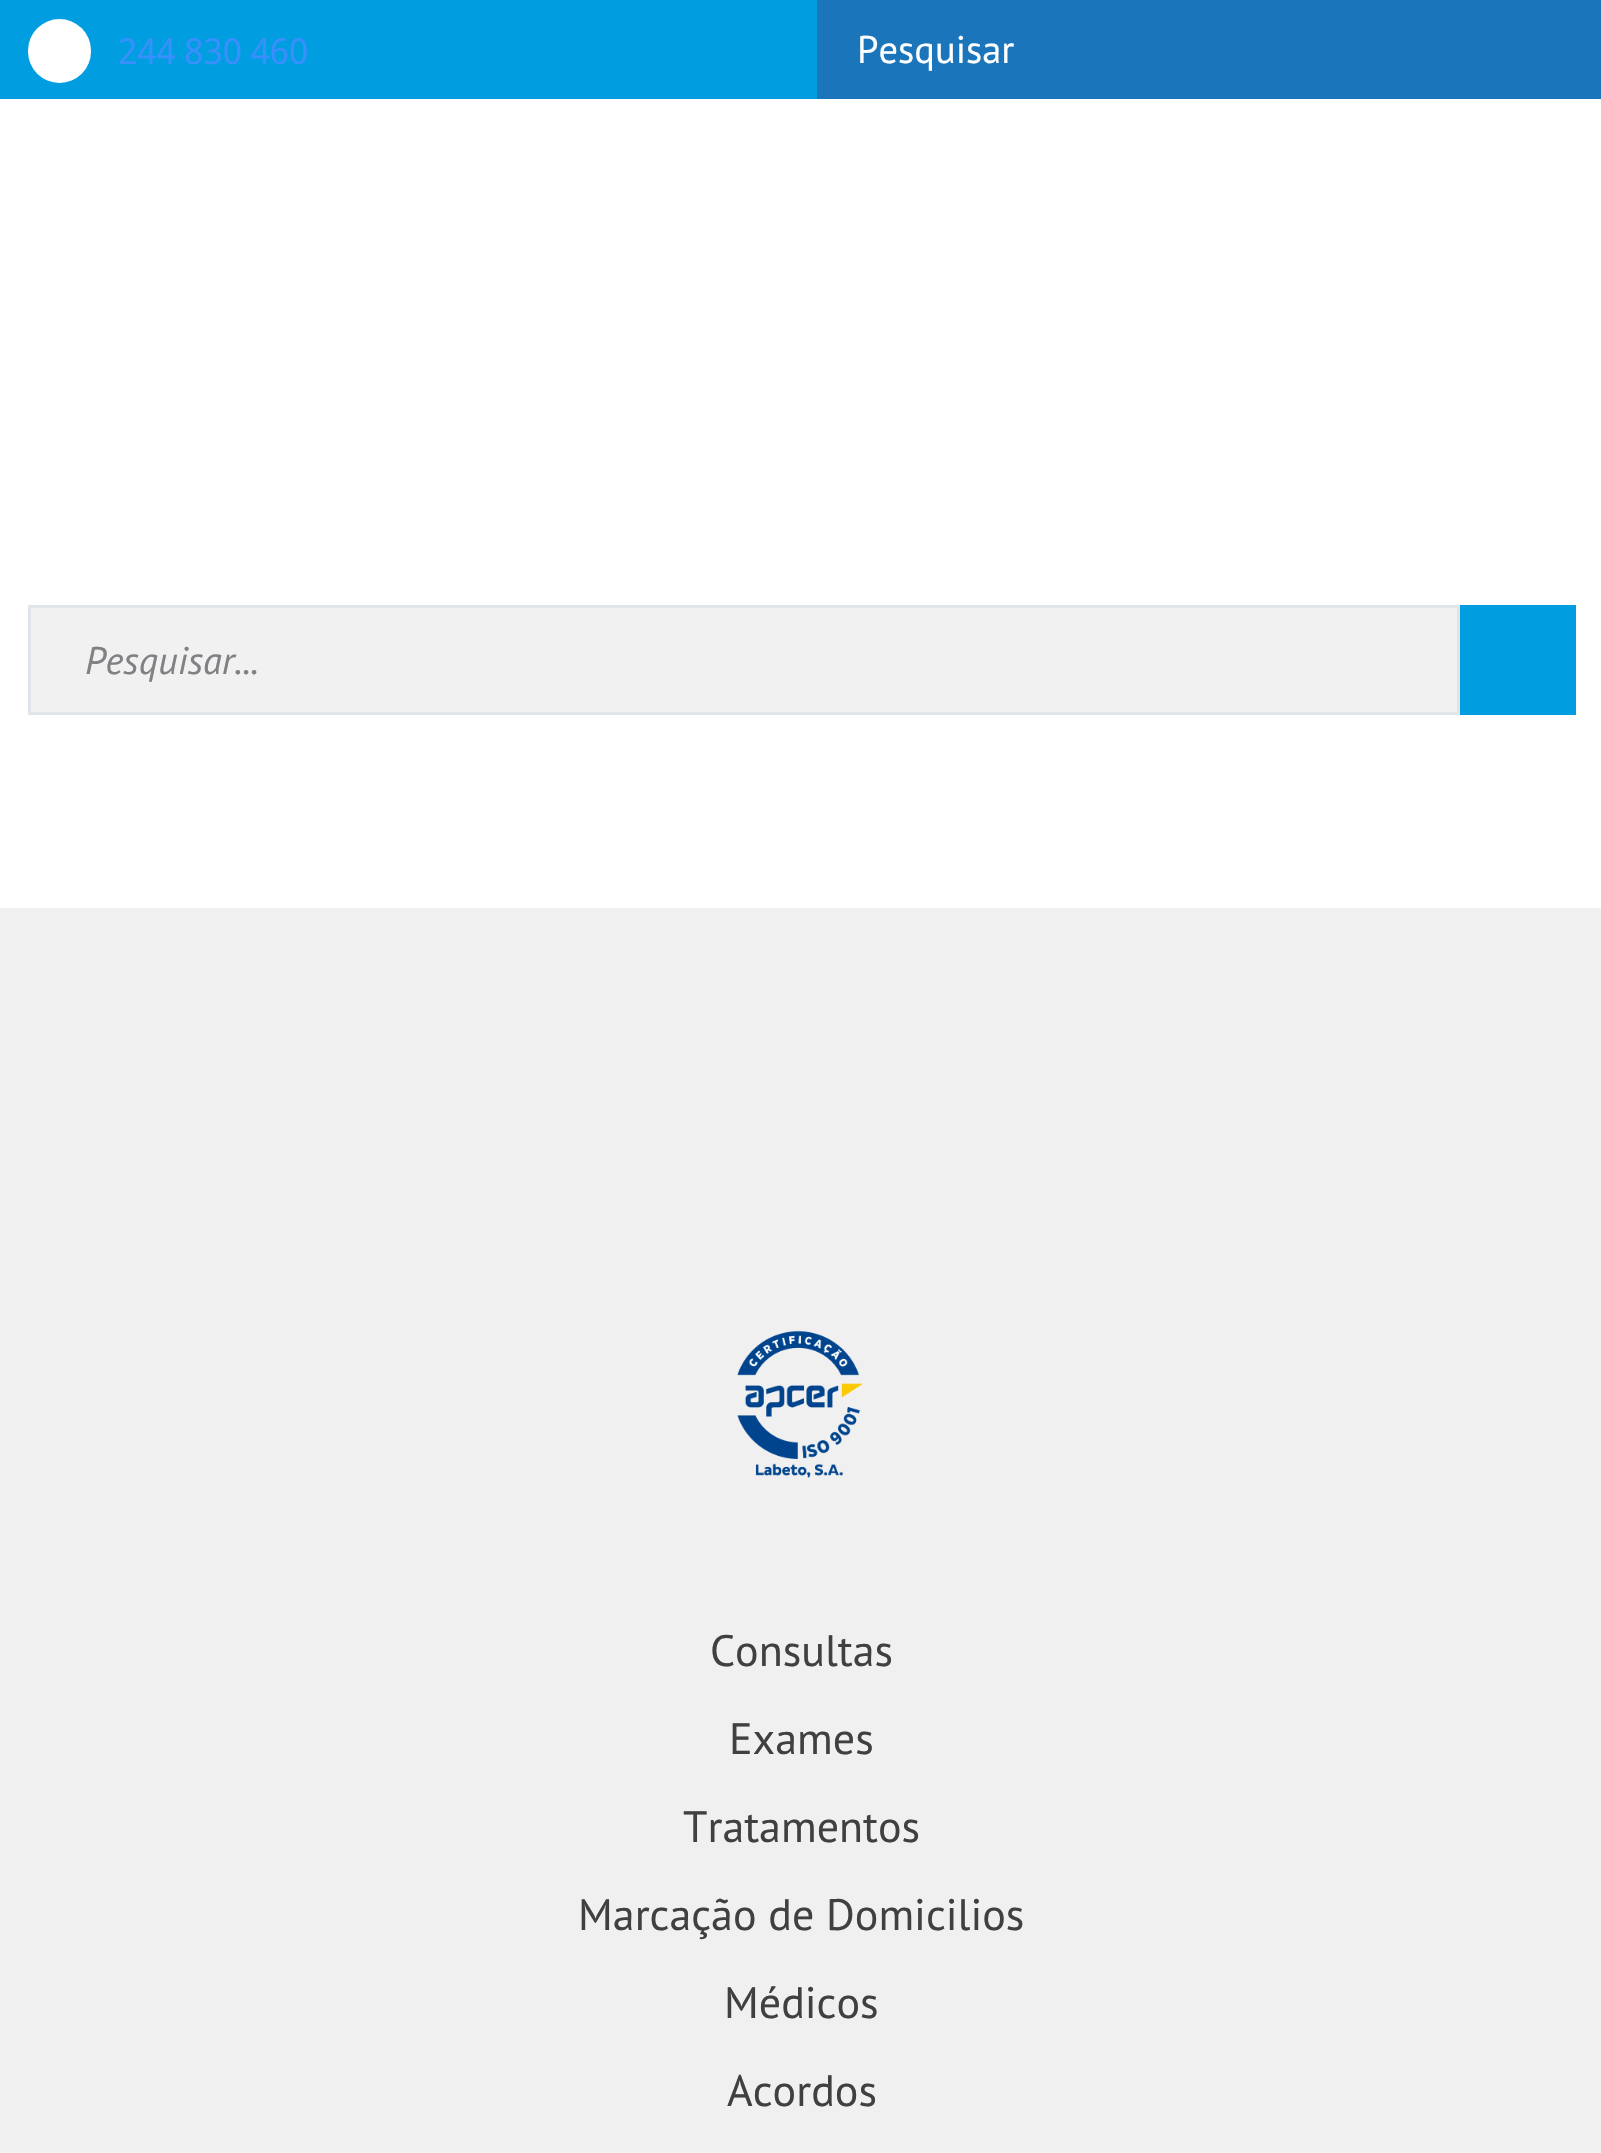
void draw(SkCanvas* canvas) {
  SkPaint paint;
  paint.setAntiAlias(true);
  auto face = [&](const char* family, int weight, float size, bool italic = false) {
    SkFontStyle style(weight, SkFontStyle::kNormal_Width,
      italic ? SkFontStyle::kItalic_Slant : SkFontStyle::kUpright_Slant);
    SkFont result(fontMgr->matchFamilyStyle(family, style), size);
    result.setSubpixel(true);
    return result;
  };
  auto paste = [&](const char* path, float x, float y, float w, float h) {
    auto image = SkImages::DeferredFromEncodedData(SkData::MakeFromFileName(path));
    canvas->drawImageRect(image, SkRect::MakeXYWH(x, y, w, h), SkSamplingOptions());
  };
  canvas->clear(0xffffffff);
  paint.setColor(0xff009ee0);
  canvas->drawRect(SkRect::MakeXYWH(0, 0, 817, 99), paint);
  paint.setColor(0xffffffff);
  canvas->drawRoundRect(SkRect::MakeXYWH(28, 19, 63, 64), 31.5f, 31.5f, paint);
  paint.setColor(0xff1b75bb);
  canvas->drawRect(SkRect::MakeXYWH(817, 0, 784, 99), paint);
  paint.setColor(0xfff1f1f2);
  canvas->drawRect(SkRect::MakeXYWH(29.5f, 606.5f, 1429, 107), paint);
  paint.setStroke(true);
  paint.setStrokeWidth(3);
  paint.setColor(0xffe1e5eb);
  canvas->drawRect(SkRect::MakeXYWH(29.5f, 606.5f, 1429, 107), paint);
  paint.setStroke(false);
  paint.setColor(0xff009ee0);
  canvas->drawRect(SkRect::MakeXYWH(1460, 605, 116, 110), paint);
  paint.setColor(0xfff0f0f1);
  canvas->drawRect(SkRect::MakeXYWH(0, 908, 1601, 1245), paint);
  paste("img/1.png", 737, 1330, 126, 148);
  auto f0 = face("Noto Sans Display", 400, 35.75f);
  paint.setColor(0xff398ffc);
  canvas->drawString("244 830 460", 118, 64, f0, paint);
  auto f1 = face("PT Sans", 400, 38.5f);
  paint.setColor(0xffffffff);
  canvas->drawString("Pesquisar", 857, 63, f1, paint);
  auto f2 = face("PT Sans", 400, 38.5f, true);
  paint.setColor(0xff808184);
  canvas->drawString("Pesquisar...", 85, 674, f2, paint);
  auto f3 = face("PT Sans", 400, 44);
  paint.setColor(0xff404041);
  {
    const struct { const char* s; float x, y; } items[] = {
      {"Consultas", 710, 1666},
      {"Exames", 729, 1754},
      {"Tratamentos", 683, 1842},
      {"Marcação de Domicilios", 578, 1930},
      {"Médicos", 724, 2018},
      {"Acordos", 727, 2106},
    };
    for (auto [s, x, y] : items) {
      canvas->drawString(s, x, y, f3, paint);
    }
  }
}
